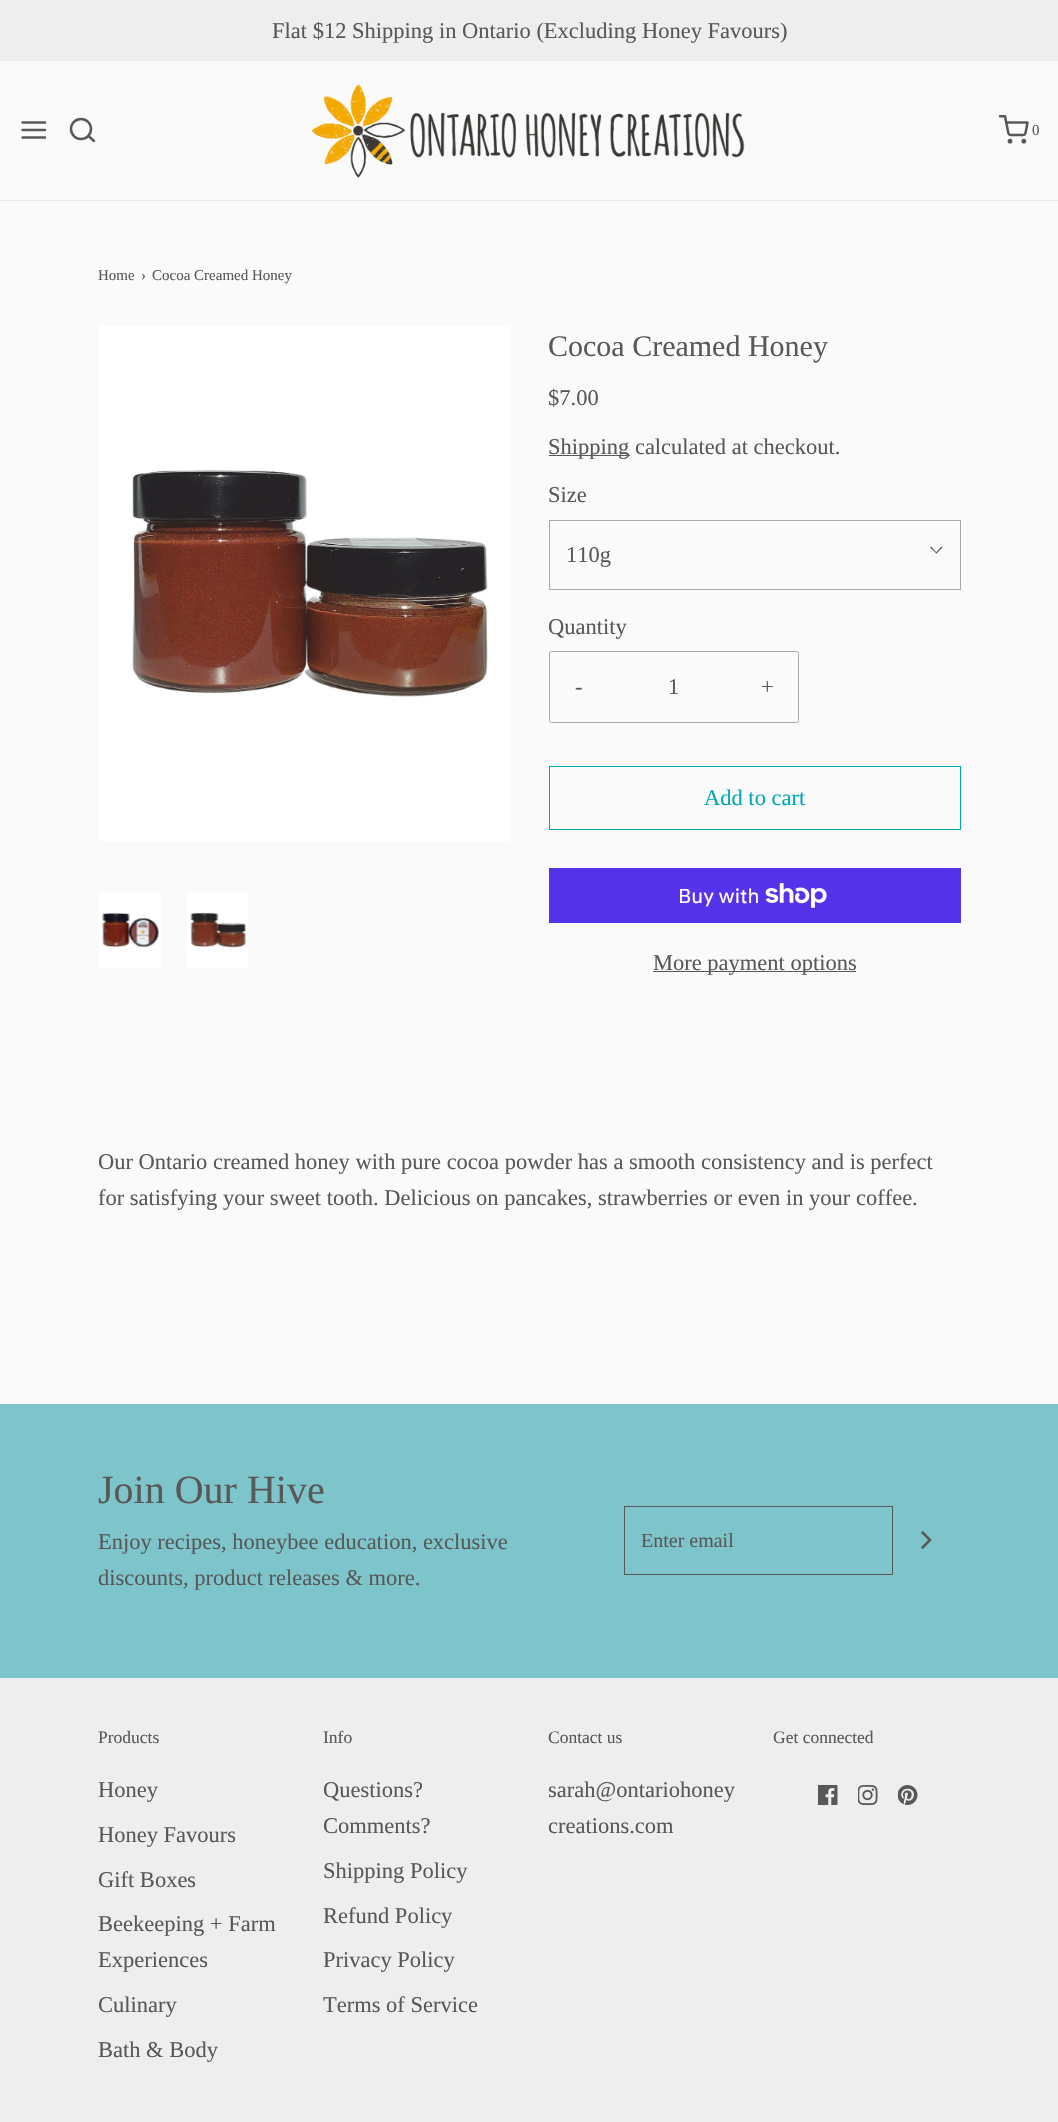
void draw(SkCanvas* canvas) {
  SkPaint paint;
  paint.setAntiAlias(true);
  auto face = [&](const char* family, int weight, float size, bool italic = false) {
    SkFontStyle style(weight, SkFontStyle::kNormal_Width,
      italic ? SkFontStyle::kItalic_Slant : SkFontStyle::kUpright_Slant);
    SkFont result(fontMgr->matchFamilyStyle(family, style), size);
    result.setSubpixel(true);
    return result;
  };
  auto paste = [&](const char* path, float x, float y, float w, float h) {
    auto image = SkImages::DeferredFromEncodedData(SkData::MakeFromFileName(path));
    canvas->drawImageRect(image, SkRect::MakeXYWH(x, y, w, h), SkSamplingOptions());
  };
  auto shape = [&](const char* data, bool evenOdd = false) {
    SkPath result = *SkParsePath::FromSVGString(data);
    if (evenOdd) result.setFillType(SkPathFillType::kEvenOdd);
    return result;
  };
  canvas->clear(0xfffafafa);
  paint.setColor(0xffeeeeee);
  canvas->drawRect(SkRect::MakeXYWH(0, 0, 1058, 61), paint);
  paint.setColor(0xffeaeaea);
  canvas->drawRect(SkRect::MakeXYWH(0, 200, 1058, 1), paint);
  paint.setStroke(true);
  paint.setStrokeWidth(2.5f);
  paint.setStrokeCap(SkPaint::kRound_Cap);
  paint.setStrokeJoin(SkPaint::kRound_Join);
  paint.setColor(0xff585858);
  canvas->drawPath(shape("M22.5 130H45M22.5 122.5H45M22.5 137.5H45"), paint);
  paint.setStrokeCap(SkPaint::kButt_Cap);
  paint.setStrokeJoin(SkPaint::kMiter_Join);
  canvas->drawCircle(81, 129, 10, paint);
  paint.setStrokeCap(SkPaint::kRound_Cap);
  paint.setStrokeJoin(SkPaint::kRound_Join);
  canvas->drawPath(shape("M94 141L88.5 136"), paint);
  paste("img/1.png", 311, 84, 434, 94);
  paste("img/2.png", 999, 115, 30, 29);
  paste("img/3.png", 99, 325, 412, 516);
  paste("img/4.png", 99, 892, 62, 76);
  paste("img/5.png", 187, 892, 61, 76);
  paint.setStroke(false);
  canvas->drawRect(SkRect::MakeXYWH(549, 455, 81, 1), paint);
  paint.setStroke(true);
  paint.setStrokeWidth(1);
  paint.setStrokeCap(SkPaint::kButt_Cap);
  paint.setStrokeJoin(SkPaint::kMiter_Join);
  paint.setColor(0xffa9a9a9);
  canvas->drawRect(SkRect::MakeXYWH(549.5f, 520.5f, 411, 69), paint);
  paint.setStroke(false);
  paint.setColor(0xff585858);
  canvas->drawPath(shape("M941.5 546.5L942.5 547.5L936.5 553.5L935.5 553Z"), paint);
  canvas->drawPath(shape("M931 546.5L937 553L936.5 553.5L930 547.5Z"), paint);
  paint.setStroke(true);
  paint.setColor(0xffa9a9a9);
  canvas->drawRoundRect(SkRect::MakeXYWH(549.5f, 651.5f, 249, 71), 2, 2, paint);
  paint.setColor(0xff00a6b3);
  canvas->drawRect(SkRect::MakeXYWH(549.5f, 766.5f, 411, 63), paint);
  paint.setStroke(false);
  paint.setColor(0xff5433eb);
  canvas->drawRect(SkRect::MakeXYWH(549, 868, 412, 55), paint);
  paste("img/6.png", 765, 883, 62, 25);
  paint.setColor(0xff585858);
  canvas->drawRect(SkRect::MakeXYWH(653, 971, 203, 1), paint);
  paint.setColor(0xff7ec5cb);
  canvas->drawRect(SkRect::MakeXYWH(0, 1404, 1058, 274), paint);
  paint.setStroke(true);
  paint.setColor(0xff585858);
  canvas->drawRect(SkRect::MakeXYWH(624.5f, 1506.5f, 268, 68), paint);
  paint.setStrokeWidth(2.5f);
  paint.setStrokeCap(SkPaint::kRound_Cap);
  paint.setStrokeJoin(SkPaint::kRound_Join);
  canvas->drawPath(shape("M922.5 1547.5L930 1540L922.5 1532.5"), paint);
  paint.setStroke(false);
  paint.setColor(0xffeeeeee);
  canvas->drawRect(SkRect::MakeXYWH(0, 1678, 1058, 444), paint);
  paste("img/7.png", 818, 1785, 20, 20);
  paste("img/8.png", 858, 1785, 20, 20);
  paste("img/9.png", 898, 1785, 20, 20);
  auto f0 = face("Liberation Serif", 400, 22.5f);
  paint.setColor(0xff585858);
  canvas->drawString("Flat $12 Shipping in Ontario (Excluding Honey Favours)", 272, 38, f0, paint);
  auto f1 = face("Liberation Serif", 400, 15);
  {
    const struct { const char* s; float x, y; } items[] = {
      {"0", 1032, 135},
      {"Home", 98, 280},
      {"›", 141, 280},
      {"Cocoa Creamed Honey", 152, 280},
    };
    for (auto [s, x, y] : items) {
      canvas->drawString(s, x, y, f1, paint);
    }
  }
  auto f2 = face("Liberation Serif", 400, 30);
  canvas->drawString("Cocoa Creamed Honey", 548, 356, f2, paint);
  {
    const struct { const char* s; float x, y; } items[] = {
      {"$7.00", 548, 405},
      {"Shipping calculated at checkout.", 548, 454},
      {"Size", 548, 502},
      {"110g", 566, 562},
      {"Quantity", 548, 634},
      {"-", 575, 694},
      {"1", 668, 694},
      {"+", 761, 694},
    };
    for (auto [s, x, y] : items) {
      canvas->drawString(s, x, y, f0, paint);
    }
  }
  paint.setColor(0xff00a6b3);
  canvas->drawString("Add to cart", 704, 805, f0, paint);
  auto f3 = face("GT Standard", 400, 20);
  paint.setColor(0xffffffff);
  canvas->drawString("Buy with", 678, 903, f3, paint);
  paint.setColor(0xff585858);
  {
    const struct { const char* s; float x, y; } items[] = {
      {"More payment options", 653, 970},
      {"Our Ontario creamed honey with pure cocoa powder has a smooth consistency and is perfect", 98, 1169},
      {"for satisfying your sweet tooth. Delicious on pancakes, strawberries or even in your coffee.", 98, 1205},
    };
    for (auto [s, x, y] : items) {
      canvas->drawString(s, x, y, f0, paint);
    }
  }
  auto f4 = face("Liberation Serif", 400, 40);
  canvas->drawString("Join Our Hive", 98, 1503, f4, paint);
  canvas->drawString("Enjoy recipes, honeybee education, exclusive", 98, 1549, f0, paint);
  canvas->drawString("discounts, product releases & more.", 98, 1585, f0, paint);
  auto f5 = face("Liberation Serif", 400, 20);
  canvas->drawString("Enter email", 641, 1547, f5, paint);
  auto f6 = face("Liberation Serif", 400, 17.5f);
  canvas->drawString("Products", 98, 1743, f6, paint);
  {
    const struct { const char* s; float x, y; } items[] = {
      {"Honey", 98, 1797},
      {"Honey Favours", 98, 1842},
      {"Gift Boxes", 98, 1887},
      {"Beekeeping + Farm", 98, 1931},
      {"Experiences", 98, 1967},
      {"Culinary", 98, 2012},
      {"Bath & Body", 98, 2057},
    };
    for (auto [s, x, y] : items) {
      canvas->drawString(s, x, y, f0, paint);
    }
  }
  canvas->drawString("Info", 323, 1743, f6, paint);
  {
    const struct { const char* s; float x, y; } items[] = {
      {"Questions?", 323, 1797},
      {"Comments?", 323, 1833},
      {"Shipping Policy", 323, 1878},
      {"Refund Policy", 323, 1923},
      {"Privacy Policy", 323, 1967},
      {"Terms of Service", 323, 2012},
    };
    for (auto [s, x, y] : items) {
      canvas->drawString(s, x, y, f0, paint);
    }
  }
  canvas->drawString("Contact us", 548, 1743, f6, paint);
  canvas->drawString("sarah@ontariohoney", 548, 1797, f0, paint);
  canvas->drawString("creations.com", 548, 1833, f0, paint);
  canvas->drawString("Get connected", 773, 1743, f6, paint);
}
